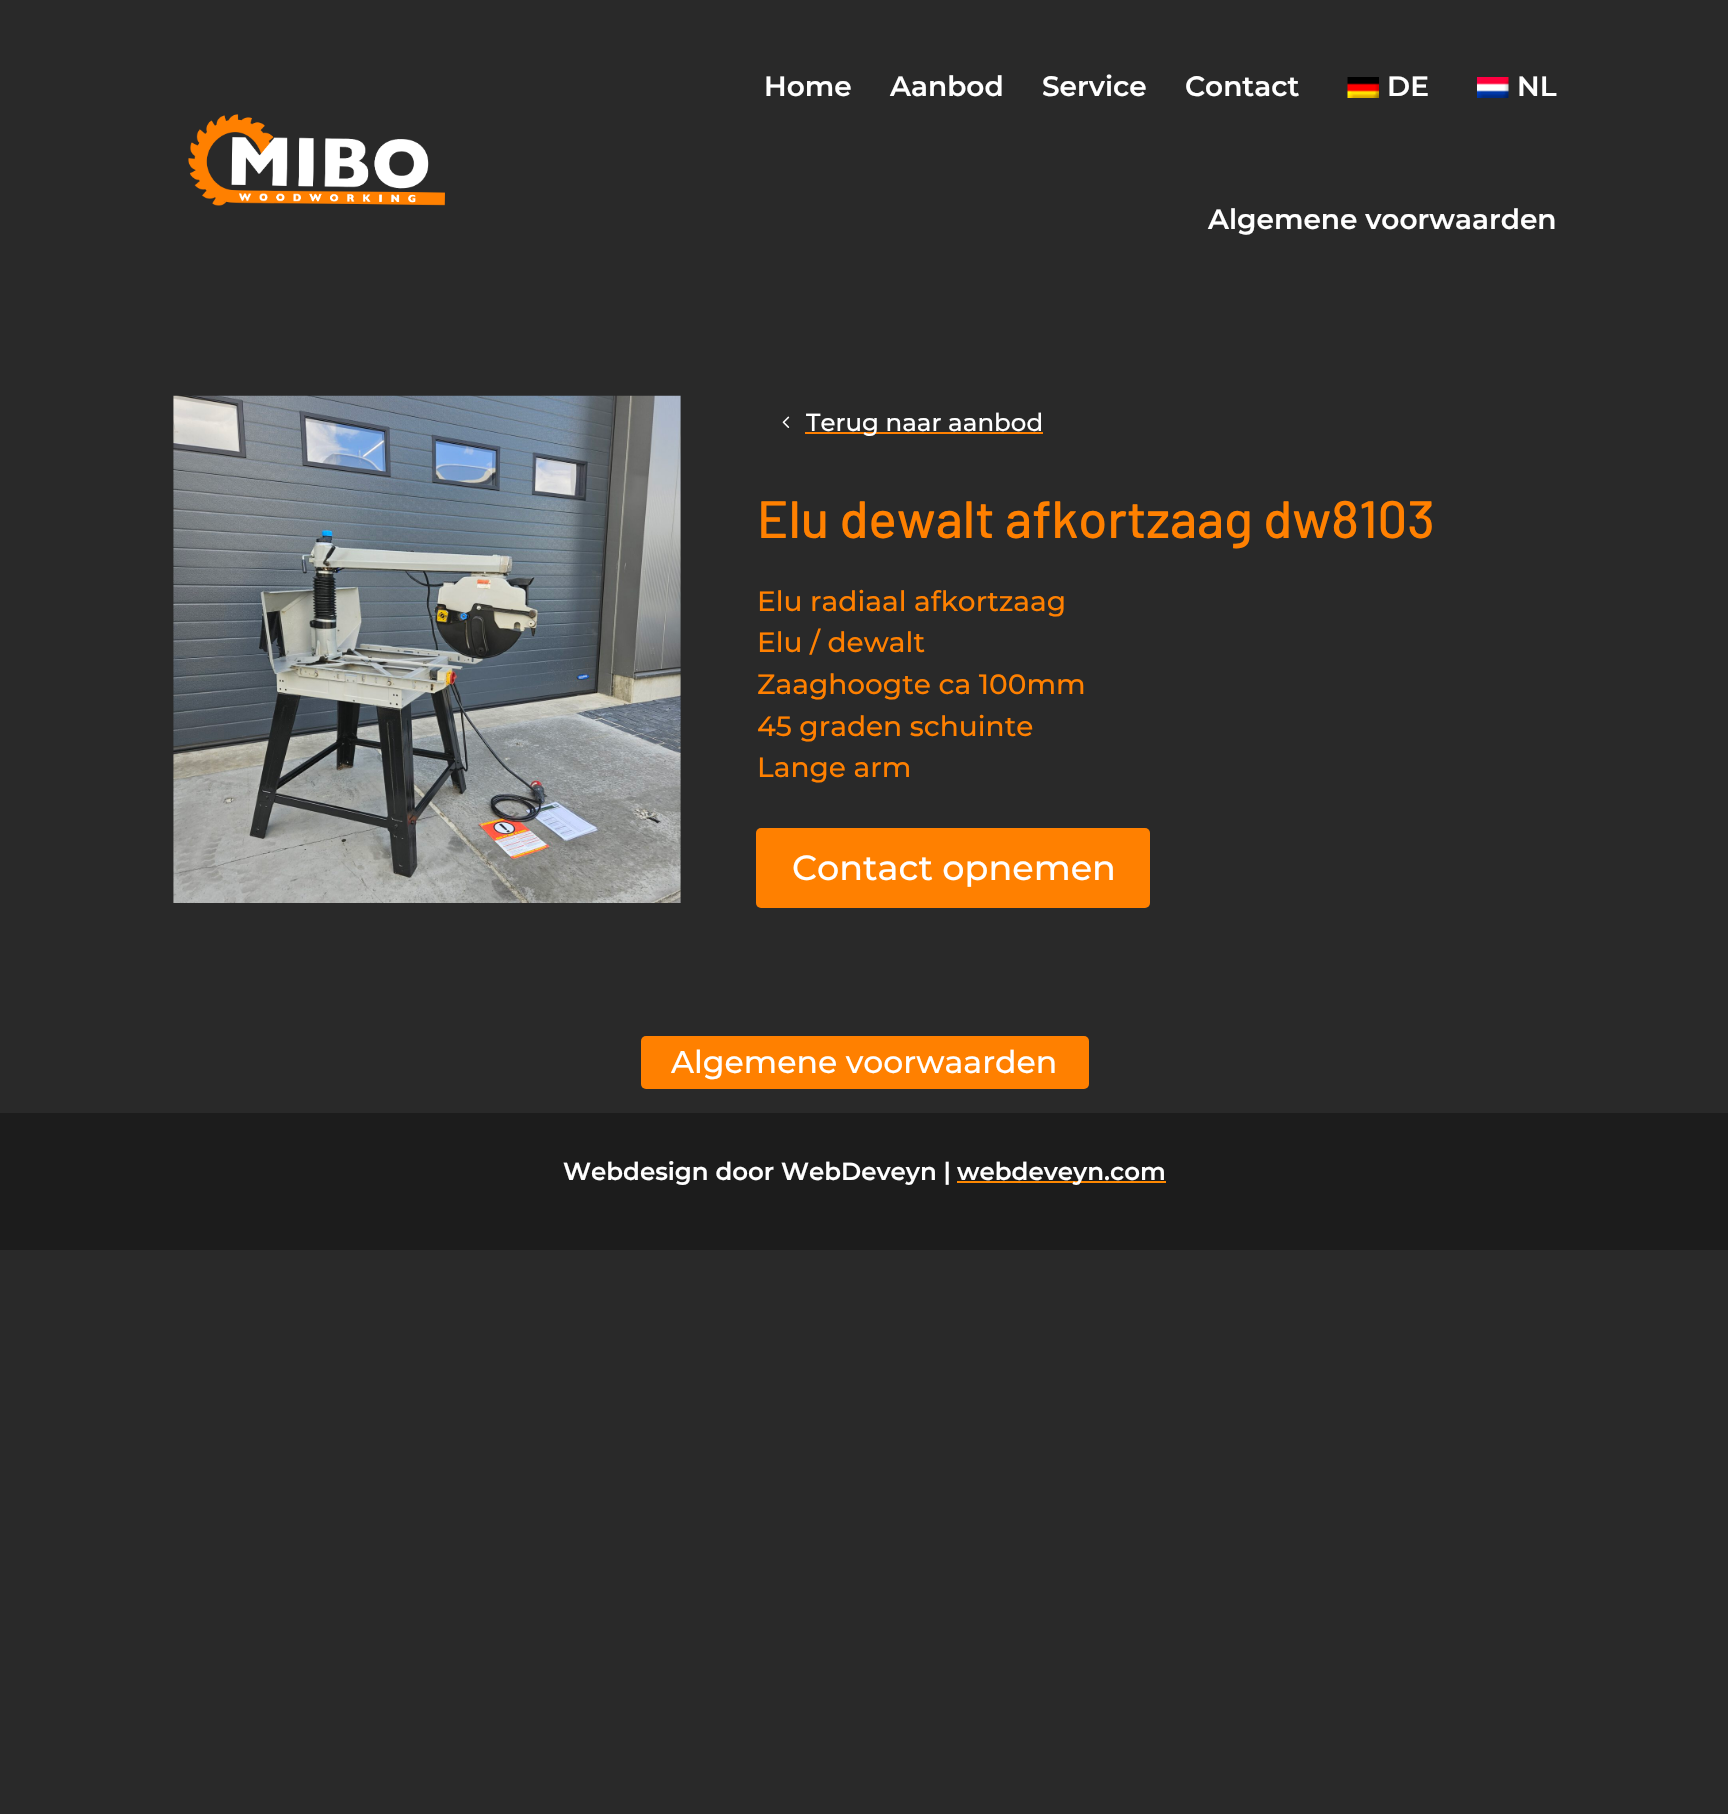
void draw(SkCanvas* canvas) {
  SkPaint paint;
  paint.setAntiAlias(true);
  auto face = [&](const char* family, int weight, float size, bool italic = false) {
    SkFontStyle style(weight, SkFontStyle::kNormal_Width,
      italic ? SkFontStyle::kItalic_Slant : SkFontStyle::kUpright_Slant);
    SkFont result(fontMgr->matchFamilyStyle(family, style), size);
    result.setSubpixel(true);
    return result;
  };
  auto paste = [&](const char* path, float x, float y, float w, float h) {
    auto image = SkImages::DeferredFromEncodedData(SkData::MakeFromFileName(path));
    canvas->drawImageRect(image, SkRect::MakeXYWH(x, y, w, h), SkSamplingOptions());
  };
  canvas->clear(0xff292929);
  paste("img/1.png", 188, 114, 257, 92);
  paste("img/2.png", 1347, 77, 32, 21);
  paste("img/3.png", 1477, 77, 32, 21);
  paste("img/4.png", 173, 395, 508, 508);
  paste("img/5.png", 782, 416, 8, 12);
  paint.setColor(0xffff8000);
  canvas->drawRect(SkRect::MakeXYWH(805, 432, 238, 2), paint);
  canvas->drawRoundRect(SkRect::MakeXYWH(756, 828, 394, 80), 5, 5, paint);
  canvas->drawRoundRect(SkRect::MakeXYWH(641, 1036, 448, 53), 5, 5, paint);
  paint.setColor(0xff1c1c1c);
  canvas->drawRect(SkRect::MakeXYWH(0, 1113, 1728, 137), paint);
  paint.setColor(0xffff8800);
  canvas->drawRect(SkRect::MakeXYWH(957, 1181, 209, 2), paint);
  auto f0 = face("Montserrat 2", 100, 28);
  paint.setColor(0xffffffff);
  {
    const struct { const char* s; float x, y; } items[] = {
      {"Home", 764, 96},
      {"Aanbod", 890, 96},
      {"Service", 1042, 96},
      {"Contact", 1185, 96},
      {"DE", 1387, 96},
      {"NL", 1517, 96},
      {"Algemene voorwaarden", 1208, 229},
    };
    for (auto [s, x, y] : items) {
      canvas->drawString(s, x, y, f0, paint);
    }
  }
  auto f1 = face("Montserrat", 100, 24.5f);
  canvas->drawString("Terug naar aanbod", 806, 431, f1, paint);
  auto f2 = face("Barlow", 500, 52.5f);
  paint.setColor(0xffff8000);
  canvas->drawString("Elu dewalt afkortzaag dw8103", 757, 538, f2, paint);
  auto f3 = face("Montserrat", 100, 28);
  {
    const struct { const char* s; float x, y; } items[] = {
      {"Elu radiaal afkortzaag", 757, 611},
      {"Elu / dewalt", 757, 652},
      {"Zaaghoogte ca 100mm", 757, 694},
      {"45 graden schuinte", 757, 736},
      {"Lange arm", 757, 777},
    };
    for (auto [s, x, y] : items) {
      canvas->drawString(s, x, y, f3, paint);
    }
  }
  auto f4 = face("Montserrat", 100, 35);
  paint.setColor(0xffffffff);
  canvas->drawString("Contact opnemen", 792, 880, f4, paint);
  auto f5 = face("Montserrat", 100, 31.5f);
  canvas->drawString("Algemene voorwaarden", 671, 1073, f5, paint);
  auto f6 = face("Montserrat 2", 100, 24.5f);
  canvas->drawString("Webdesign door WebDeveyn |", 563, 1180, f6, paint);
  canvas->drawString("webdeveyn.com", 957, 1180, f6, paint);
}
